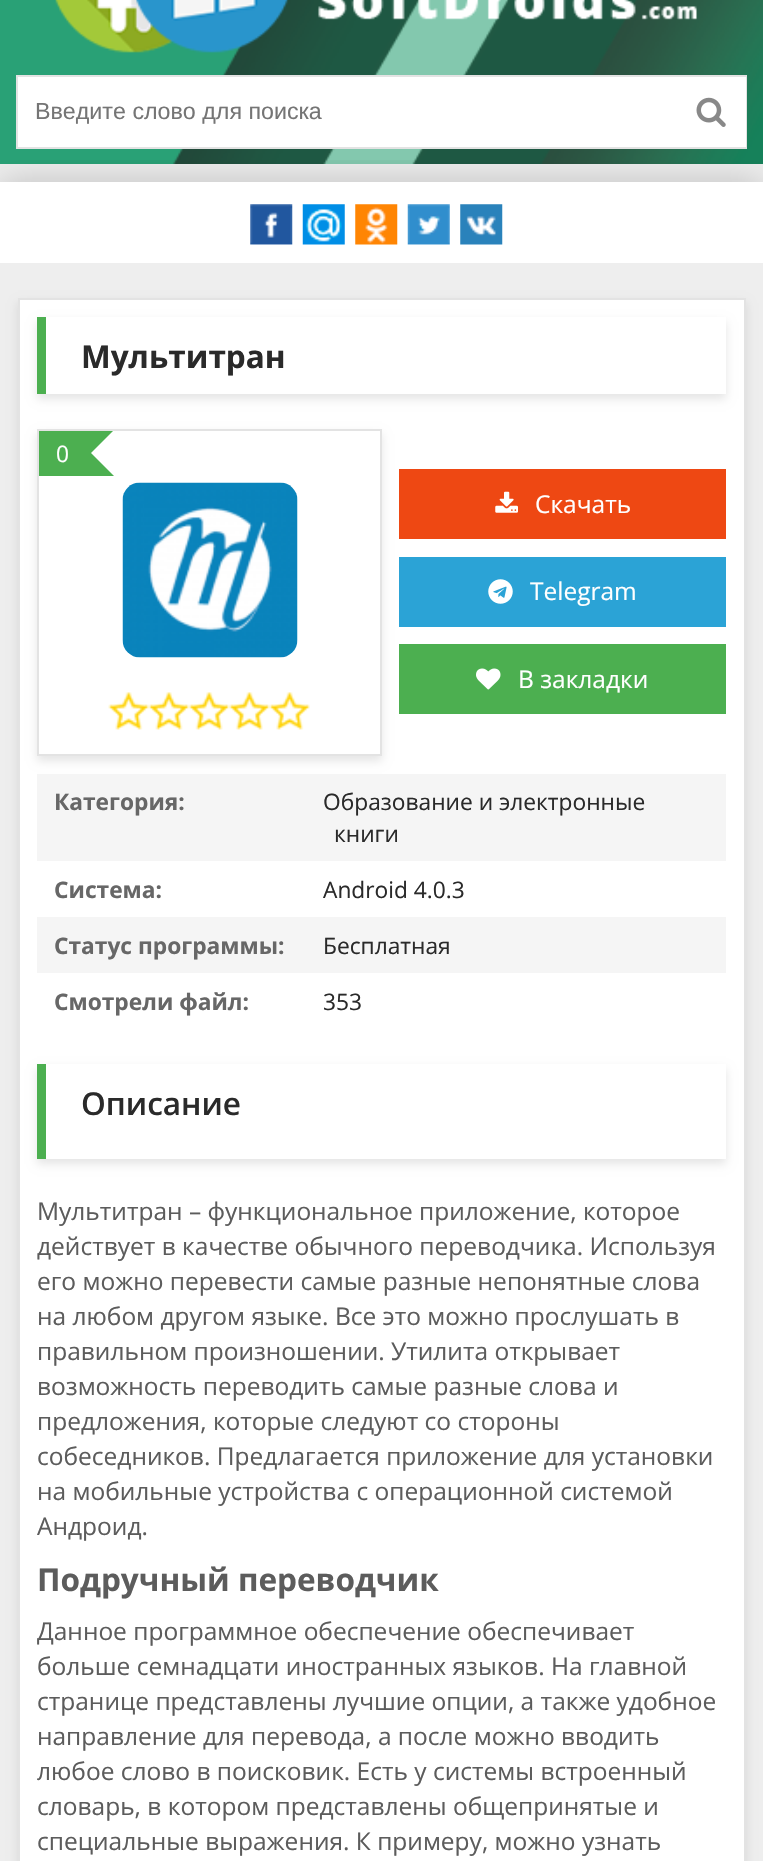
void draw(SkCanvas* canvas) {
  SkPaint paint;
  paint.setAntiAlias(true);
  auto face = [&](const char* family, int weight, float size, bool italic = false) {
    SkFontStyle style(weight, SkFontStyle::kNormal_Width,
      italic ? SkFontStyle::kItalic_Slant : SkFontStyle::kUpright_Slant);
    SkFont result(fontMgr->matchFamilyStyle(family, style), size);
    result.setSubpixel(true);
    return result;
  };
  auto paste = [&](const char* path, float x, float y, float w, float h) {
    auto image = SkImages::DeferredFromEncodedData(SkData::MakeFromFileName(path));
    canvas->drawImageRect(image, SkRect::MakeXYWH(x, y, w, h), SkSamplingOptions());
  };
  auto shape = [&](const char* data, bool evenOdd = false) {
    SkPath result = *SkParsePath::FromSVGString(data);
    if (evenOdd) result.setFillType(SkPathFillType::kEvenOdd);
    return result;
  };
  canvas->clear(0xffeeeeee);
  paste("img/1.png", 0, 0, 763, 164);
  paste("img/2.png", 55, 0, 642, 53);
  canvas->save();
  canvas->clipRect(SkRect::MakeXYWH(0, 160, 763, 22));
  paint.setColor(0x33000000);
  paint.setMaskFilter(SkMaskFilter::MakeBlur(kNormal_SkBlurStyle, 17.5f));
  canvas->drawRect(SkRect::MakeXYWH(0, 182, 763, 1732), paint);
  paint.setMaskFilter(nullptr);
  canvas->restore();
  paint.setStroke(true);
  paint.setStrokeWidth(2);
  paint.setColor(0xffe3e3e3);
  canvas->drawRect(SkRect::MakeXYWH(17, 76, 729, 72), paint);
  paint.setStroke(false);
  paint.setColor(0xffffffff);
  canvas->drawRect(SkRect::MakeXYWH(18, 77, 728, 70), paint);
  paste("img/3.png", 696, 97, 30, 30);
  canvas->drawRect(SkRect::MakeXYWH(0, 182, 763, 81), paint);
  paste("img/4.png", 250, 204, 43, 41);
  paste("img/5.png", 302, 204, 43, 41);
  paste("img/6.png", 355, 204, 43, 41);
  paste("img/7.png", 407, 204, 43, 41);
  paste("img/8.png", 460, 204, 43, 41);
  paint.setColor(0x1a000101);
  paint.setMaskFilter(SkMaskFilter::MakeBlur(kNormal_SkBlurStyle, 4.5f));
  canvas->drawRect(SkRect::MakeXYWH(18, 303, 728, 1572), paint);
  paint.setMaskFilter(nullptr);
  paint.setColor(0xffffffff);
  canvas->drawRect(SkRect::MakeXYWH(19, 299, 726, 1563), paint);
  paint.setStroke(true);
  paint.setColor(0xffe3e3e3);
  canvas->drawRect(SkRect::MakeXYWH(19, 299, 726, 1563), paint);
  paint.setStroke(false);
  paint.setColor(0x1a000101);
  paint.setMaskFilter(SkMaskFilter::MakeBlur(kNormal_SkBlurStyle, 4.5f));
  canvas->drawRect(SkRect::MakeXYWH(37, 322, 689, 77), paint);
  paint.setMaskFilter(nullptr);
  {
    const struct { float x, y, w, h; SkColor color; } items[] = {
      {46, 317, 680, 77, 0xffffffff},
      {37, 317, 9, 77, 0xff4caf50},
      {37, 774, 689, 87, 0xfff5f5f5},
    };
    for (auto [x, y, w, h, color] : items) {
      paint.setColor(color);
      canvas->drawRect(SkRect::MakeXYWH(x, y, w, h), paint);
    }
  }
  paint.setColor(0x1a000101);
  paint.setMaskFilter(SkMaskFilter::MakeBlur(kNormal_SkBlurStyle, 4.5f));
  canvas->drawRect(SkRect::MakeXYWH(37, 434, 345, 327), paint);
  paint.setMaskFilter(nullptr);
  paint.setColor(0xffffffff);
  canvas->drawRect(SkRect::MakeXYWH(38, 430, 343, 325), paint);
  paint.setStroke(true);
  paint.setColor(0xffe3e3e3);
  canvas->drawRect(SkRect::MakeXYWH(38, 430, 343, 325), paint);
  paint.setStroke(false);
  paint.setColor(0xff4caf50);
  canvas->drawRect(SkRect::MakeXYWH(39, 431, 29, 45), paint);
  canvas->save();
  canvas->clipRect(SkRect::MakeXYWH(39, 431, 341, 323));
  canvas->drawPath(shape("M68 430H114L91 453Z"), paint);
  canvas->restore();
  canvas->drawPath(shape("M114 476H68L91 453Z"), paint);
  canvas->drawRect(SkRect::MakeXYWH(68, 431, 23, 45), paint);
  paste("img/9.png", 122, 482, 176, 176);
  paste("img/10.png", 108, 692, 202, 38);
  paint.setColor(0xffee4813);
  canvas->drawRect(SkRect::MakeXYWH(399, 469, 327, 70), paint);
  paste("img/11.png", 495, 491, 23, 22);
  paint.setColor(0xff2ba3d6);
  canvas->drawRect(SkRect::MakeXYWH(399, 557, 327, 70), paint);
  paste("img/12.png", 488, 579, 25, 25);
  paint.setColor(0xff4caf50);
  canvas->drawRect(SkRect::MakeXYWH(399, 644, 327, 70), paint);
  paste("img/13.png", 476, 668, 25, 22);
  paint.setColor(0xfff5f5f5);
  canvas->drawRect(SkRect::MakeXYWH(37, 917, 689, 56), paint);
  paint.setColor(0x1a000101);
  paint.setMaskFilter(SkMaskFilter::MakeBlur(kNormal_SkBlurStyle, 4.5f));
  canvas->drawRect(SkRect::MakeXYWH(37, 1069, 689, 95), paint);
  paint.setMaskFilter(nullptr);
  paint.setColor(0xffffffff);
  canvas->drawRect(SkRect::MakeXYWH(46, 1064, 680, 95), paint);
  paint.setColor(0xff4caf50);
  canvas->drawRect(SkRect::MakeXYWH(37, 1064, 9, 95), paint);
  auto f0 = face("Liberation Sans", 400, 23.25f);
  paint.setColor(0xff757575);
  canvas->drawString("Введите слово для поиска", 35, 119, f0, paint);
  auto f1 = face("Open Sans", 700, 31.5f);
  paint.setColor(0xff2a2a2a);
  canvas->drawString("Мультитран", 81, 368, f1, paint);
  auto f2 = face("Open Sans", 400, 22.75f);
  paint.setColor(0xffffffff);
  canvas->drawString("0", 56, 462, f2, paint);
  auto f3 = face("Open Sans", 400, 24.5f);
  {
    const struct { const char* s; float x, y; } items[] = {
      {"Скачать", 535, 513},
      {"Telegram", 530, 600},
      {"В закладки", 518, 688},
    };
    for (auto [s, x, y] : items) {
      canvas->drawString(s, x, y, f3, paint);
    }
  }
  auto f4 = face("Open Sans", 700, 22.75f);
  paint.setColor(0xff676767);
  canvas->drawString("Категория:", 54, 810, f4, paint);
  paint.setColor(0xff2a2a2a);
  canvas->drawString("Образование и электронные", 323, 810, f2, paint);
  canvas->drawString("книги", 334, 842, f2, paint);
  paint.setColor(0xff676767);
  canvas->drawString("Система:", 54, 898, f4, paint);
  paint.setColor(0xff2a2a2a);
  canvas->drawString("Android 4.0.3", 323, 898, f2, paint);
  paint.setColor(0xff676767);
  canvas->drawString("Статус программы:", 54, 954, f4, paint);
  paint.setColor(0xff2a2a2a);
  canvas->drawString("Бесплатная", 323, 954, f2, paint);
  paint.setColor(0xff676767);
  canvas->drawString("Смотрели файл:", 54, 1010, f4, paint);
  paint.setColor(0xff2a2a2a);
  canvas->drawString("353", 323, 1010, f2, paint);
  auto f5 = face("Open Sans", 600, 31.5f);
  canvas->drawString("Описание", 81, 1115, f5, paint);
  paint.setColor(0xff5c5c5c);
  {
    const struct { const char* s; float x, y; } items[] = {
      {"Мультитран – функциональное приложение, которое", 37, 1220},
      {"действует в качестве обычного переводчика. Используя", 37, 1255},
      {"его можно перевести самые разные непонятные слова", 37, 1290},
      {"на любом другом языке. Все это можно прослушать в", 37, 1325},
      {"правильном произношении. Утилита открывает", 37, 1360},
      {"возможность переводить самые разные слова и", 37, 1395},
      {"предложения, которые следуют со стороны", 37, 1430},
      {"собеседников. Предлагается приложение для установки", 37, 1465},
      {"на мобильные устройства с операционной системой", 37, 1500},
      {"Андроид.", 37, 1535},
    };
    for (auto [s, x, y] : items) {
      canvas->drawString(s, x, y, f3, paint);
    }
  }
  canvas->drawString("Подручный переводчик", 37, 1591, f1, paint);
  {
    const struct { const char* s; float x, y; } items[] = {
      {"Данное программное обеспечение обеспечивает", 37, 1640},
      {"больше семнадцати иностранных языков. На главной", 37, 1675},
      {"странице представлены лучшие опции, а также удобное", 37, 1710},
      {"направление для перевода, а после можно вводить", 37, 1745},
      {"любое слово в поисковик. Есть у системы встроенный", 37, 1780},
      {"словарь, в котором представлены общепринятые и", 37, 1815},
      {"специальные выражения. К примеру, можно узнать", 37, 1850},
    };
    for (auto [s, x, y] : items) {
      canvas->drawString(s, x, y, f3, paint);
    }
  }
}
